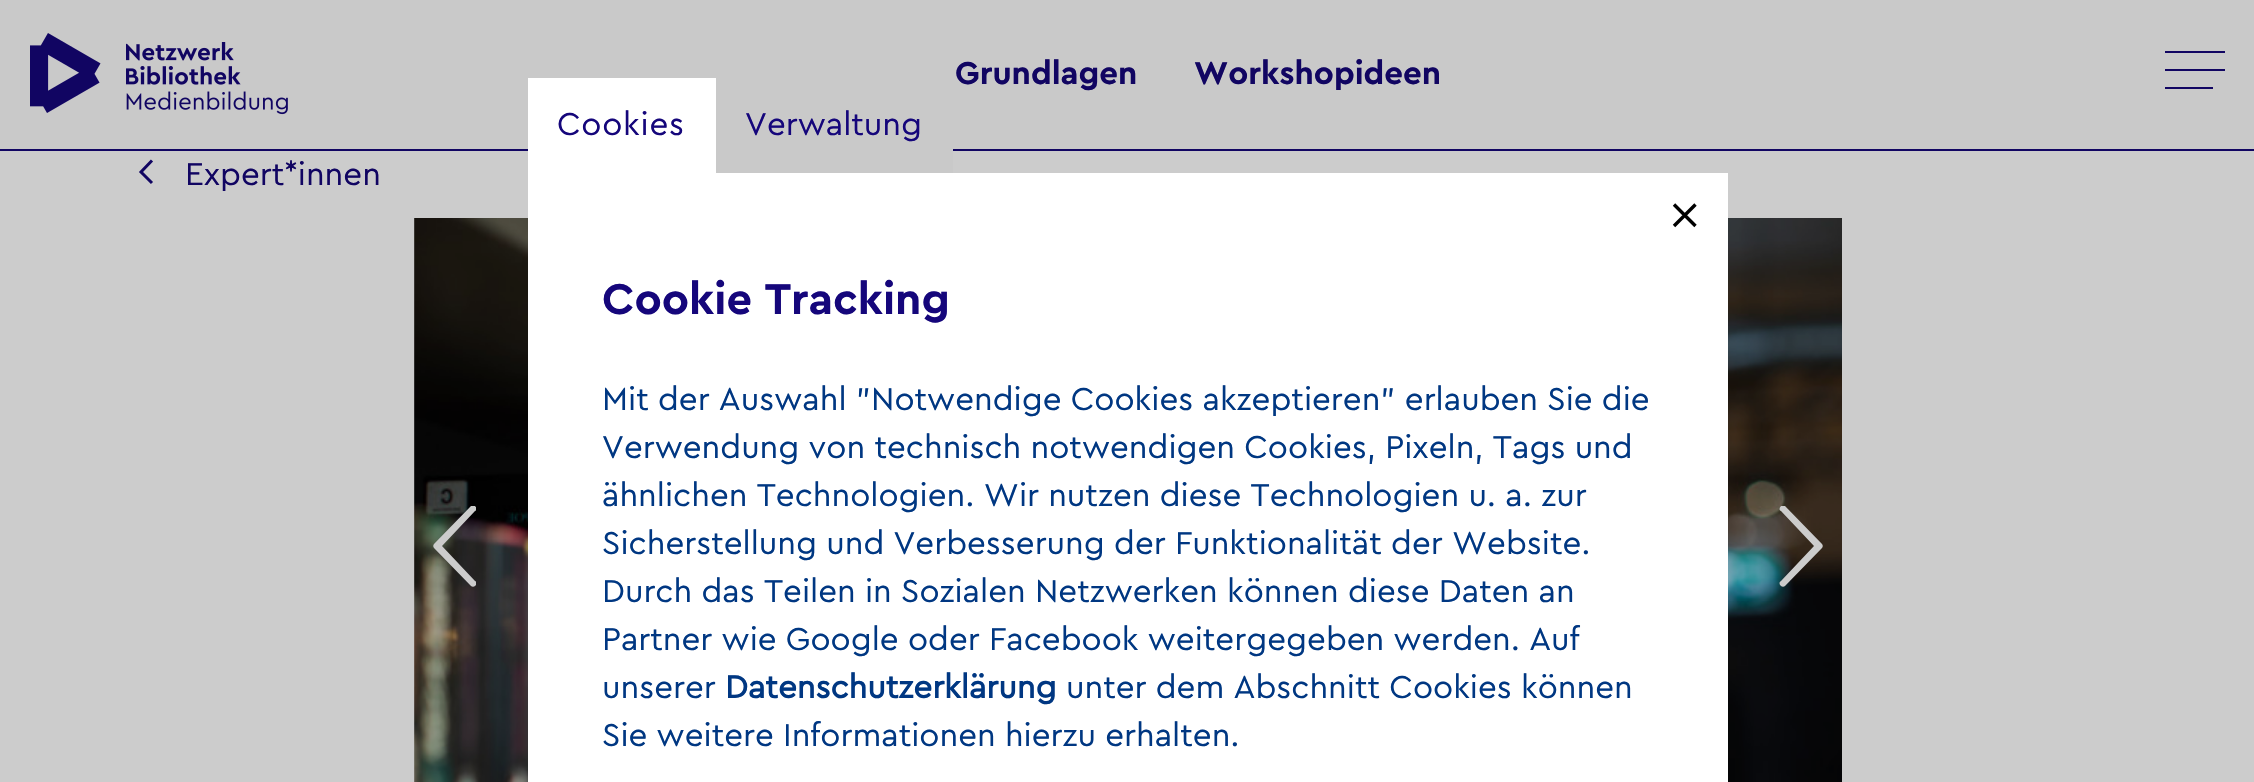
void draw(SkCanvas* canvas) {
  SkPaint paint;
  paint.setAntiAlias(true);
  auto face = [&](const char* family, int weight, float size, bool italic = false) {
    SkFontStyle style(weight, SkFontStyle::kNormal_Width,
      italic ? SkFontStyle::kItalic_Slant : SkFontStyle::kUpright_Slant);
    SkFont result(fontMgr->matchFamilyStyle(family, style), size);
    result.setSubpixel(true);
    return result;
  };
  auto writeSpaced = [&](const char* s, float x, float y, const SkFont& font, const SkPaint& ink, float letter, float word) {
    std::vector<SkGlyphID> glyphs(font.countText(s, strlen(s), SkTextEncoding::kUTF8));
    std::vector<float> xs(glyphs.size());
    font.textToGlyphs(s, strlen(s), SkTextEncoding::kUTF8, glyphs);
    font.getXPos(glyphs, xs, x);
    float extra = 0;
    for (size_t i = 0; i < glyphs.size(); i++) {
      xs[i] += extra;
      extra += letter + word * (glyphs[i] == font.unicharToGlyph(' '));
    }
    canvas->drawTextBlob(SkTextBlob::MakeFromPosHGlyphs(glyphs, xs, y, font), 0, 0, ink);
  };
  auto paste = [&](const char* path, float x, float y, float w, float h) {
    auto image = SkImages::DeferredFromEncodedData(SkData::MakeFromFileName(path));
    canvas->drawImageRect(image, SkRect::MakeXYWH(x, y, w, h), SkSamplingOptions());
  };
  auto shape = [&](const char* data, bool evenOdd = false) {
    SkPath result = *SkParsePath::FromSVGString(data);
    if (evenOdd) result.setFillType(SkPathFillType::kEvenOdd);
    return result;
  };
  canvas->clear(0xffcccccc);
  paint.setColor(0xffc9c9c9);
  canvas->drawRect(SkRect::MakeXYWH(0, 0, 2254, 149), paint);
  paint.setColor(0xff110562);
  canvas->drawRect(SkRect::MakeXYWH(0, 149, 2254, 2), paint);
  paste("img/1.png", 30, 33, 258, 82);
  {
    const struct { float x, y, w, h; SkColor color; } items[] = {
      {2165, 51, 60, 2, 0xff110562},
      {2165, 69, 60, 2, 0xff110562},
      {2165, 87, 48, 2, 0xff110562},
    };
    for (auto [x, y, w, h, color] : items) {
      paint.setColor(color);
      canvas->drawRect(SkRect::MakeXYWH(x, y, w, h), paint);
    }
  }
  paint.setStroke(true);
  paint.setStrokeWidth(3);
  canvas->drawPath(shape("M152 183L141 172L152 160.5"), paint);
  paste("img/2.png", 414, 218, 1428, 564);
  canvas->save();
  canvas->clipRect(SkRect::MakeXYWH(432, 506, 44, 81));
  paint.setStroke(false);
  paint.setColor(0xffcccccc);
  canvas->drawPath(shape("M475 511C477 510 477 508 475 506C474 505 472 505 471 506L434 544C433 545 433 547 434 548L471 586C472 587 474 587 475 586C477 584 477 582 475 581L442 546Z", true), paint);
  canvas->restore();
  canvas->save();
  canvas->clipRect(SkRect::MakeXYWH(1779, 506, 44, 81));
  canvas->drawPath(shape("M1781 581C1779 582 1779 584 1781 586C1782 587 1784 587 1785 586L1822 548C1823 547 1823 545 1822 544L1785 506C1784 505 1782 505 1781 506C1779 508 1779 510 1781 511L1814 546Z", true), paint);
  canvas->restore();
  {
    const struct { float x, y, w, h; SkColor color; } items[] = {
      {528, 78, 188, 95, 0xffffffff},
      {716, 149, 237, 24, 0xffc9c9c9},
      {528, 173, 1200, 609, 0xffffffff},
    };
    for (auto [x, y, w, h, color] : items) {
      paint.setColor(color);
      canvas->drawRect(SkRect::MakeXYWH(x, y, w, h), paint);
    }
  }
  paint.setStroke(true);
  paint.setStrokeWidth(3.4f);
  paint.setColor(0xff000000);
  canvas->drawPath(shape("M1674 226L1695.5 204.5M1674 204.5L1695.5 226"), paint);
  auto f0 = face("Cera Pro", 700, 33);
  paint.setStroke(false);
  paint.setColor(0xff110562);
  canvas->drawString("Grundlagen", 955, 84, f0, paint);
  canvas->drawString("Workshopideen", 1194, 84, f0, paint);
  auto f1 = face("Cera Pro", 400, 33);
  canvas->drawString("Expert*innen", 185, 185, f1, paint);
  paint.setColor(0xff15067b);
  writeSpaced("Cookies", 557, 135, f1, paint, 0.75f, 0);
  canvas->drawString("Verwaltung", 745, 135, f1, paint);
  auto f2 = face("Cera Pro", 700, 45);
  canvas->drawString("Cookie Tracking", 602, 314, f2, paint);
  paint.setColor(0xff003782);
  {
    const struct { const char* s; float x, y; } items[] = {
      {"Mit der Auswahl \"Notwendige Cookies akzeptieren\" erlauben Sie die", 602, 410},
      {"Verwendung von technisch notwendigen Cookies, Pixeln, Tags und", 602, 458},
      {"ähnlichen Technologien. Wir nutzen diese Technologien u. a. zur", 602, 506},
      {"Sicherstellung und Verbesserung der Funktionalität der Website.", 602, 554},
      {"Durch das Teilen in Sozialen Netzwerken können diese Daten an", 602, 602},
      {"Partner wie Google oder Facebook weitergegeben werden. Auf", 602, 650},
      {"unserer", 602, 698},
    };
    for (auto [s, x, y] : items) {
      canvas->drawString(s, x, y, f1, paint);
    }
  }
  auto f3 = face("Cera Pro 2", 700, 33);
  canvas->drawString("Datenschutzerklärung", 725, 698, f3, paint);
  canvas->drawString("unter dem Abschnitt Cookies können", 1066, 698, f1, paint);
  canvas->drawString("Sie weitere Informationen hierzu erhalten.", 602, 746, f1, paint);
}
